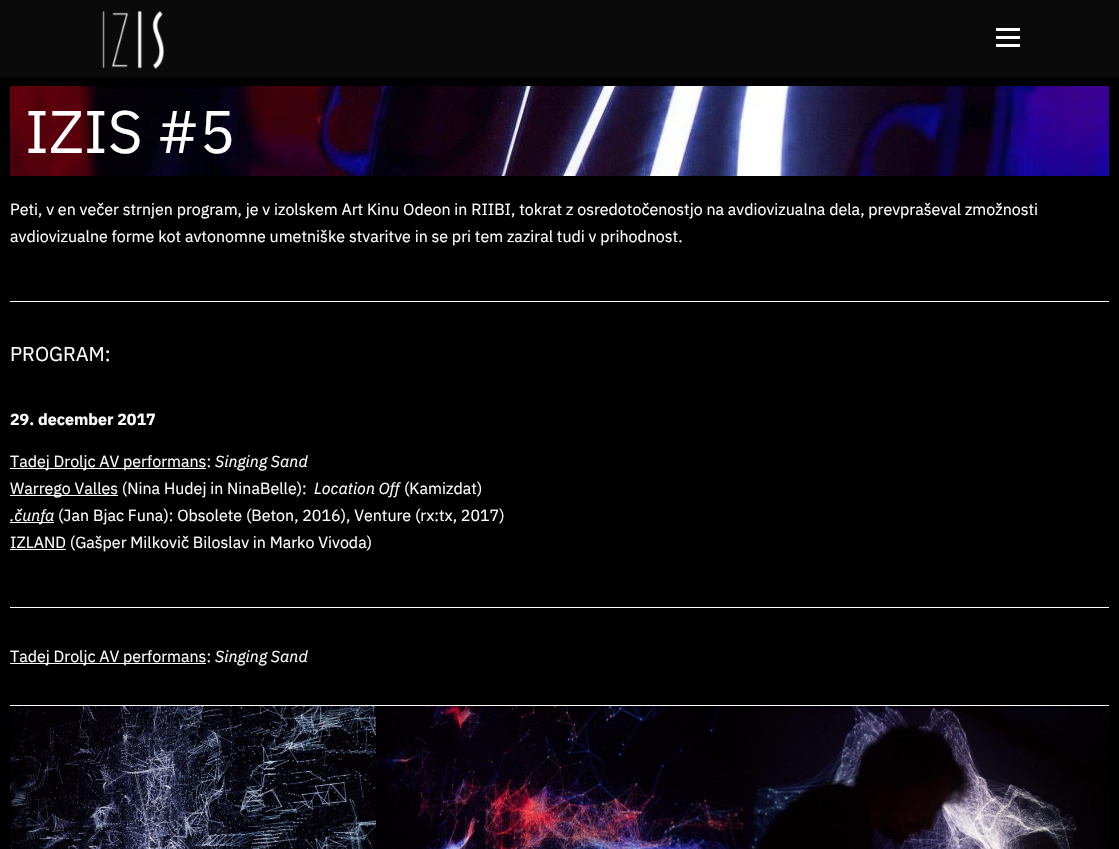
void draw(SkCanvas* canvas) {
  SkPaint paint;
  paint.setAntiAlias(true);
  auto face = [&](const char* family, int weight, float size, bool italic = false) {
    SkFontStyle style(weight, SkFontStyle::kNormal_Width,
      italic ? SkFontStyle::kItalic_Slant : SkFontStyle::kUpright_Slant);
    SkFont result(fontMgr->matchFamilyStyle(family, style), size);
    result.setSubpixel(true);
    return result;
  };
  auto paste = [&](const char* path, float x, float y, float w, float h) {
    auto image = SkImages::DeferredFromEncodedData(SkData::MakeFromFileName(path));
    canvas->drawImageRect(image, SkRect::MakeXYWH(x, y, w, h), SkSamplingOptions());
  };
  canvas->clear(0xff000000);
  paint.setColor(0xff0a0a0a);
  canvas->drawRect(SkRect::MakeXYWH(0, 0, 1119, 77), paint);
  paste("img/1.png", 102, 11, 63, 59);
  {
    const struct { float x, y, w, h; SkColor color; } items[] = {
      {996, 36, 24, 3, 0xffffffff},
      {996, 28, 24, 3, 0xffffffff},
      {996, 44, 24, 3, 0xffffffff},
    };
    for (auto [x, y, w, h, color] : items) {
      paint.setColor(color);
      canvas->drawRect(SkRect::MakeXYWH(x, y, w, h), paint);
    }
  }
  paste("img/2.png", 10, 86, 1099, 90);
  {
    const struct { float x, y, w, h; SkColor color; } items[] = {
      {10, 301, 1099, 1, 0xffffffff},
      {10, 468, 196, 1, 0xffffffff},
      {10, 495, 108, 1, 0xffffffff},
      {10, 522, 44, 1, 0xffffffff},
      {10, 549, 56, 1, 0xffffffff},
      {10, 607, 1099, 1, 0xffffffff},
      {10, 663, 196, 1, 0xffffffff},
      {10, 705, 1099, 1, 0xffffffff},
    };
    for (auto [x, y, w, h, color] : items) {
      paint.setColor(color);
      canvas->drawRect(SkRect::MakeXYWH(x, y, w, h), paint);
    }
  }
  paste("img/3.png", 10, 706, 366, 143);
  paste("img/4.png", 376, 706, 367, 143);
  paste("img/5.png", 743, 706, 366, 143);
  auto f0 = face("IBM Plex Sans", 400, 60);
  canvas->drawString("IZIS #5", 25, 153, f0, paint);
  auto f1 = face("IBM Plex Sans", 400, 16);
  canvas->drawString("Peti, v en večer strnjen program, je v izolskem Art Kinu Odeon in RIIBI, tokrat z osredotočenostjo na avdiovizualna dela, prevpraševal zmožnosti", 10, 215, f1, paint);
  canvas->drawString("avdiovizualne forme kot avtonomne umetniške stvaritve in se pri tem zaziral tudi v prihodnost.", 10, 242, f1, paint);
  auto f2 = face("IBM Plex Sans", 400, 20);
  canvas->drawString("PROGRAM:", 10, 361, f2, paint);
  auto f3 = face("IBM Plex Sans", 700, 16);
  canvas->drawString("29. december 2017", 10, 425, f3, paint);
  canvas->drawString("Tadej Droljc AV performans:", 10, 467, f1, paint);
  auto f4 = face("IBM Plex Sans", 400, 16, true);
  canvas->drawString("Singing Sand", 215, 467, f4, paint);
  canvas->drawString("Warrego Valles (Nina Hudej in NinaBelle):", 10, 494, f1, paint);
  canvas->drawString("Location Off", 314, 494, f4, paint);
  canvas->drawString("(Kamizdat)", 404, 494, f1, paint);
  canvas->drawString(".čunfa", 10, 521, f4, paint);
  {
    const struct { const char* s; float x, y; } items[] = {
      {"(Jan Bjac Funa): Obsolete (Beton, 2016), Venture (rx:tx, 2017)", 58, 521},
      {"IZLAND (Gašper Milkovič Biloslav in Marko Vivoda)", 10, 548},
      {"Tadej Droljc AV performans:", 10, 662},
    };
    for (auto [s, x, y] : items) {
      canvas->drawString(s, x, y, f1, paint);
    }
  }
  canvas->drawString("Singing Sand", 215, 662, f4, paint);
}
